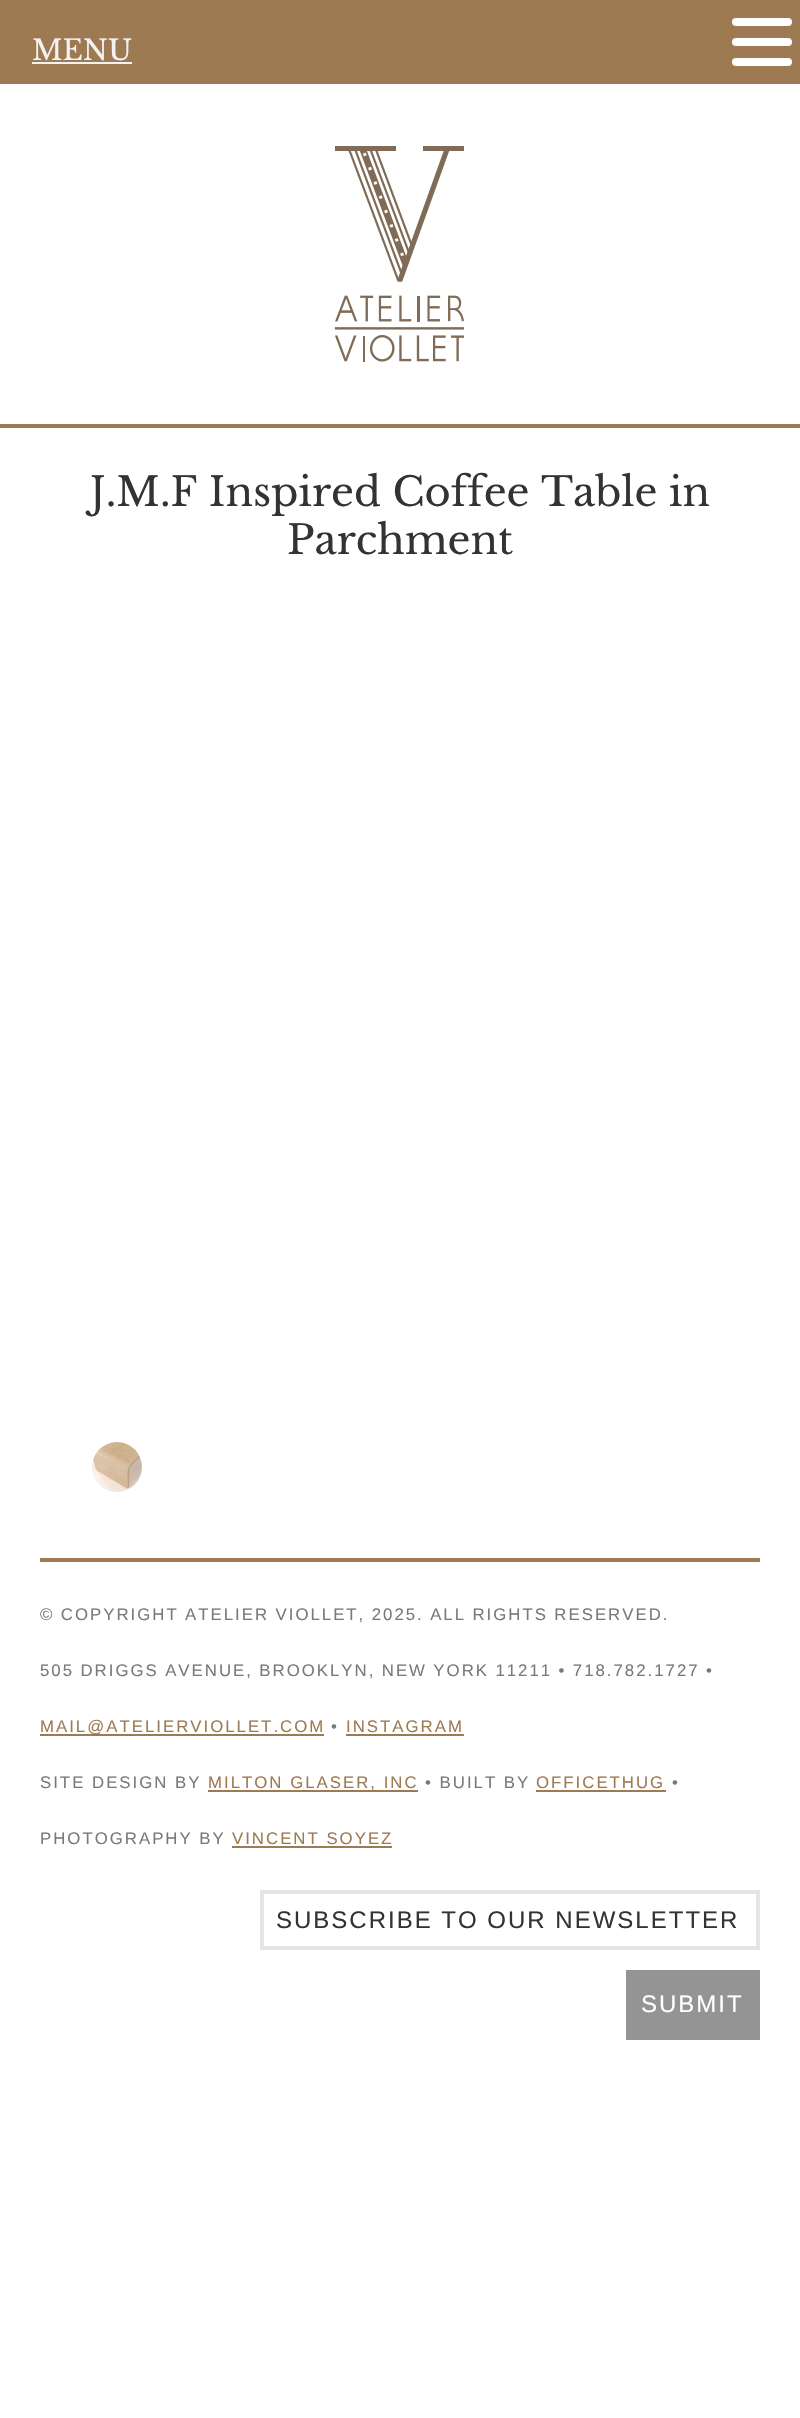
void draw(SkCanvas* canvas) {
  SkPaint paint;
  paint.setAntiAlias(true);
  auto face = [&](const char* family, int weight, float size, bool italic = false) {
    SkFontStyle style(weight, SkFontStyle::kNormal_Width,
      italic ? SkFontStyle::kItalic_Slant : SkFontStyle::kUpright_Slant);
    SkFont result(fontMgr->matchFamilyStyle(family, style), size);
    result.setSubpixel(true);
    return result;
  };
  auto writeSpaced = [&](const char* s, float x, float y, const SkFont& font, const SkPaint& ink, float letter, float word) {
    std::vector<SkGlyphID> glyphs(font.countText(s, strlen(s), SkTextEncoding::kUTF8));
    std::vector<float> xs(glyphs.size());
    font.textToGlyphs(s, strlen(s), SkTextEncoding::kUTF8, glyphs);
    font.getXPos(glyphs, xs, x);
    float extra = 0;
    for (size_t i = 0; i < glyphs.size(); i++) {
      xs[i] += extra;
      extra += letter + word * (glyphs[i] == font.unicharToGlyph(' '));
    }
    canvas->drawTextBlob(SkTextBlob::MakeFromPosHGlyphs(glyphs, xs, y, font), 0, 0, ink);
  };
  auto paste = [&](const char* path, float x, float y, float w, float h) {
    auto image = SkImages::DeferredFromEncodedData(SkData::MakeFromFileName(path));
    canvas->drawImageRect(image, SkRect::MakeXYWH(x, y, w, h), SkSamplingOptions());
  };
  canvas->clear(0xffffffff);
  paint.setColor(0xff9e7a53);
  canvas->drawRect(SkRect::MakeXYWH(0, 0, 800, 84), paint);
  paint.setColor(0xfff2f2f2);
  canvas->drawRect(SkRect::MakeXYWH(32, 62, 100, 2), paint);
  paint.setColor(0xffffffff);
  canvas->drawRoundRect(SkRect::MakeXYWH(732, 18, 60, 8), 4, 4, paint);
  canvas->drawRoundRect(SkRect::MakeXYWH(732, 38, 60, 8), 4, 4, paint);
  canvas->drawRoundRect(SkRect::MakeXYWH(732, 58, 60, 8), 4, 4, paint);
  paint.setColor(0xff9e7a53);
  canvas->drawRect(SkRect::MakeXYWH(0, 424, 800, 4), paint);
  paste("img/1.png", 334, 146, 131, 216);
  paste("img/2.png", 92, 1442, 50, 50);
  {
    const struct { float x, y, w, h; SkColor color; } items[] = {
      {40, 1558, 720, 4, 0xff9e7a53},
      {40, 1734, 284, 2, 0xff9e7a53},
      {346, 1734, 118, 2, 0xff9e7a53},
      {208, 1790, 210, 2, 0xff9e7a53},
      {536, 1790, 130, 2, 0xff9e7a53},
      {232, 1846, 160, 2, 0xff9e7a53},
    };
    for (auto [x, y, w, h, color] : items) {
      paint.setColor(color);
      canvas->drawRect(SkRect::MakeXYWH(x, y, w, h), paint);
    }
  }
  paint.setStroke(true);
  paint.setStrokeWidth(4);
  paint.setColor(0xffe5e5e5);
  canvas->drawRect(SkRect::MakeXYWH(262, 1892, 496, 56), paint);
  paint.setStroke(false);
  paint.setColor(0xff949494);
  canvas->drawRect(SkRect::MakeXYWH(626, 1970, 134, 70), paint);
  auto f0 = face("Libre Baskerville", 400, 28);
  paint.setColor(0xfff2f2f2);
  canvas->drawString("MENU", 32, 60, f0, paint);
  auto f1 = face("Libre Baskerville", 400, 40);
  paint.setColor(0xff333333);
  canvas->drawString("J.M.F Inspired Coffee Table in", 90, 506, f1, paint);
  canvas->drawString("Parchment", 287, 554, f1, paint);
  auto f2 = face("Liberation Sans", 400, 16.8f);
  paint.setColor(0xff797979);
  writeSpaced("© COPYRIGHT ATELIER VIOLLET, 2025. ALL RIGHTS RESERVED.", 40, 1620, f2, paint, 2, -0.25f);
  writeSpaced("505 DRIGGS AVENUE, BROOKLYN, NEW YORK 11211 • 718.782.1727 •", 40, 1676, f2, paint, 2, -0.25f);
  paint.setColor(0xff9e7a53);
  writeSpaced("MAIL@ATELIERVIOLLET.COM", 40, 1732, f2, paint, 2, 0);
  paint.setColor(0xff797979);
  writeSpaced("•", 331, 1732, f2, paint, 2, 0);
  paint.setColor(0xff9e7a53);
  writeSpaced("INSTAGRAM", 346, 1732, f2, paint, 2, 0);
  paint.setColor(0xff797979);
  writeSpaced("SITE DESIGN BY", 40, 1788, f2, paint, 2, 0);
  paint.setColor(0xff9e7a53);
  writeSpaced("MILTON GLASER, INC", 208, 1788, f2, paint, 2, 0);
  paint.setColor(0xff797979);
  writeSpaced("• BUILT BY", 425, 1788, f2, paint, 2, 0);
  paint.setColor(0xff9e7a53);
  writeSpaced("OFFICETHUG", 536, 1788, f2, paint, 2, 0);
  paint.setColor(0xff797979);
  writeSpaced("•", 672, 1788, f2, paint, 2, 0);
  writeSpaced("PHOTOGRAPHY BY", 40, 1844, f2, paint, 2, 0);
  paint.setColor(0xff9e7a53);
  writeSpaced("VINCENT SOYEZ", 232, 1844, f2, paint, 2, 0);
  auto f3 = face("Liberation Sans", 400, 24);
  paint.setColor(0xff333333);
  writeSpaced("SUBSCRIBE TO OUR NEWSLETTER", 276, 1928, f3, paint, 2, 0);
  paint.setColor(0xffffffff);
  writeSpaced("SUBMIT", 641, 2012, f3, paint, 2, 0);
}
